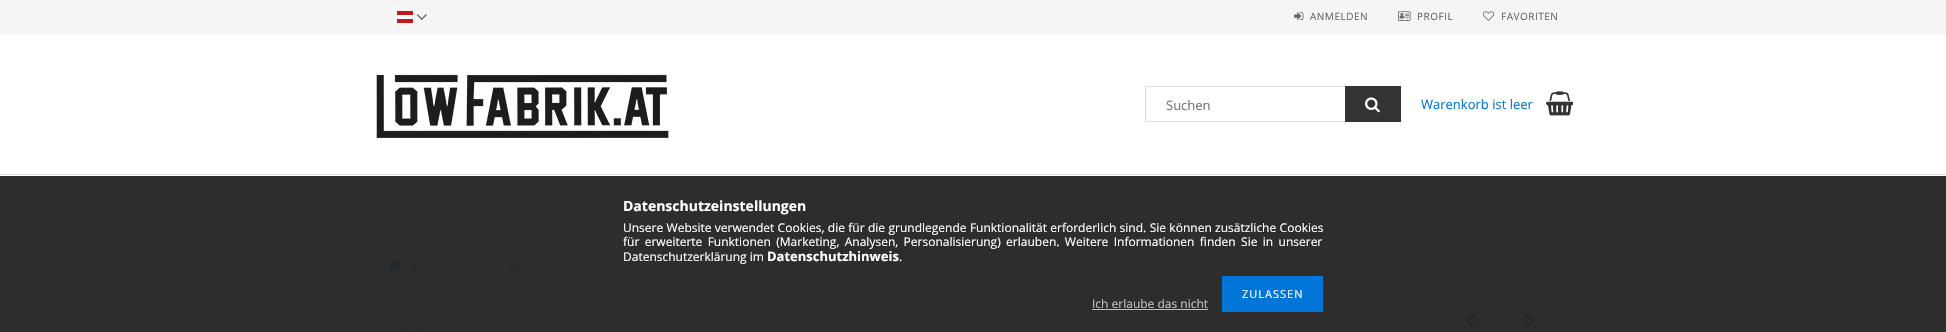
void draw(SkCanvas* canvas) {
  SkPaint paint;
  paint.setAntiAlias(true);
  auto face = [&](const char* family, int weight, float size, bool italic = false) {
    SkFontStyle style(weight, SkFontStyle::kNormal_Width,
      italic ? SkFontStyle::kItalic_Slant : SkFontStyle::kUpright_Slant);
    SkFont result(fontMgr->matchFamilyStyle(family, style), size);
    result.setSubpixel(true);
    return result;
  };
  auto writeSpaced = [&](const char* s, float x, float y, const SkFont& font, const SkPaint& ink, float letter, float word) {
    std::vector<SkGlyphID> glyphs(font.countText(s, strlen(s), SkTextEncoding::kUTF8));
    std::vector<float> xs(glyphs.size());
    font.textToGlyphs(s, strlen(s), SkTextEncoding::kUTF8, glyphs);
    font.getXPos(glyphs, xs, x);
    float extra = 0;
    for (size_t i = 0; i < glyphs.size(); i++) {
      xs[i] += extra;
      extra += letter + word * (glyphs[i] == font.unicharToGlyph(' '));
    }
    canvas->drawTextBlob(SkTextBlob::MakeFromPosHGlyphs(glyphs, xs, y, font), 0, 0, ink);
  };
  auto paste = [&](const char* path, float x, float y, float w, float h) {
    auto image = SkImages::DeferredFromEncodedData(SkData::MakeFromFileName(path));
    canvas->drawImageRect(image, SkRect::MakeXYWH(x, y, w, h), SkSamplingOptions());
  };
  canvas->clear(0xffffffff);
  paint.setColor(0xff2d2d2d);
  canvas->drawRect(SkRect::MakeXYWH(0, 176, 1946, 156), paint);
  paint.setColor(0xfff5f5f5);
  canvas->drawRect(SkRect::MakeXYWH(0, 0, 1946, 34), paint);
  paste("img/1.png", 397, 11, 16, 12);
  paste("img/2.png", 416, 14, 11, 6);
  paste("img/3.png", 1294, 12, 10, 8);
  paste("img/4.png", 1398, 11, 13, 10);
  paste("img/5.png", 1483, 11, 11, 10);
  paste("img/6.png", 376, 74, 293, 64);
  paint.setStroke(true);
  paint.setStrokeWidth(1);
  paint.setColor(0xffdddddd);
  canvas->drawRect(SkRect::MakeXYWH(1145.5f, 86.5f, 255, 35), paint);
  paint.setStroke(false);
  paint.setColor(0xff333333);
  canvas->drawRect(SkRect::MakeXYWH(1345, 86, 56, 36), paint);
  paste("img/7.png", 1365, 97, 15, 16);
  paste("img/8.png", 1546, 91, 27, 25);
  paint.setColor(0xffdddddd);
  canvas->drawRect(SkRect::MakeXYWH(0, 174, 1946, 1), paint);
  paste("img/9.png", 388, 261, 13, 10);
  paste("img/10.png", 411, 262, 5, 9);
  paste("img/10.png", 510, 262, 5, 9);
  paste("img/11.png", 1465, 313, 9, 15);
  paste("img/12.png", 1526, 313, 9, 15);
  paste("img/13.png", 397, 329, 5, 3);
  paste("img/14.png", 419, 330, 7, 2);
  paint.setColor(0xff0275d8);
  canvas->drawRect(SkRect::MakeXYWH(1222, 276, 101, 36), paint);
  paint.setColor(0xffc0c0c0);
  canvas->drawRect(SkRect::MakeXYWH(1092, 309, 116, 1), paint);
  auto f0 = face("Open Sans", 400, 10);
  paint.setColor(0xff666666);
  {
    const struct { const char* s; float x, y; } items[] = {
      {"ANMELDEN", 1310, 20},
      {"PROFIL", 1417, 20},
      {"FAVORITEN", 1501, 20},
    };
    for (auto [s, x, y] : items) {
      writeSpaced(s, x, y, f0, paint, 0.5f, 0);
    }
  }
  auto f1 = face("Open Sans", 400, 13);
  paint.setColor(0xff757575);
  canvas->drawString("Suchen", 1166, 110, f1, paint);
  paint.setColor(0xff0275d8);
  canvas->drawString("Warenkorb ist leer", 1421, 109, f1, paint);
  auto f2 = face("Open Sans", 700, 14);
  paint.setColor(0xffffffff);
  canvas->drawString("Datenschutzeinstellungen", 623, 211, f2, paint);
  auto f3 = face("Open Sans", 400, 12);
  writeSpaced("Unsere Website verwendet Cookies, die für die grundlegende Funktionalität erforderlich sind. Sie können zusätzliche Cookies", 623, 232, f3, paint, 0, 0.25f);
  writeSpaced("für erweiterte Funktionen (Marketing, Analysen, Personalisierung) erlauben. Weitere Informationen finden Sie in unserer", 623, 246, f3, paint, 0, 2.25f);
  canvas->drawString("Datenschutzerklärung im", 623, 261, f3, paint);
  auto f4 = face("Open Sans", 700, 13);
  canvas->drawString("Datenschutzhinweis", 767, 261, f4, paint);
  canvas->drawString(".", 899, 261, f3, paint);
  auto f5 = face("Open Sans", 400, 11);
  writeSpaced("ZULASSEN", 1242, 298, f5, paint, 1, 0);
  paint.setColor(0xffc0c0c0);
  canvas->drawString("Ich erlaube das nicht", 1092, 308, f3, paint);
}
